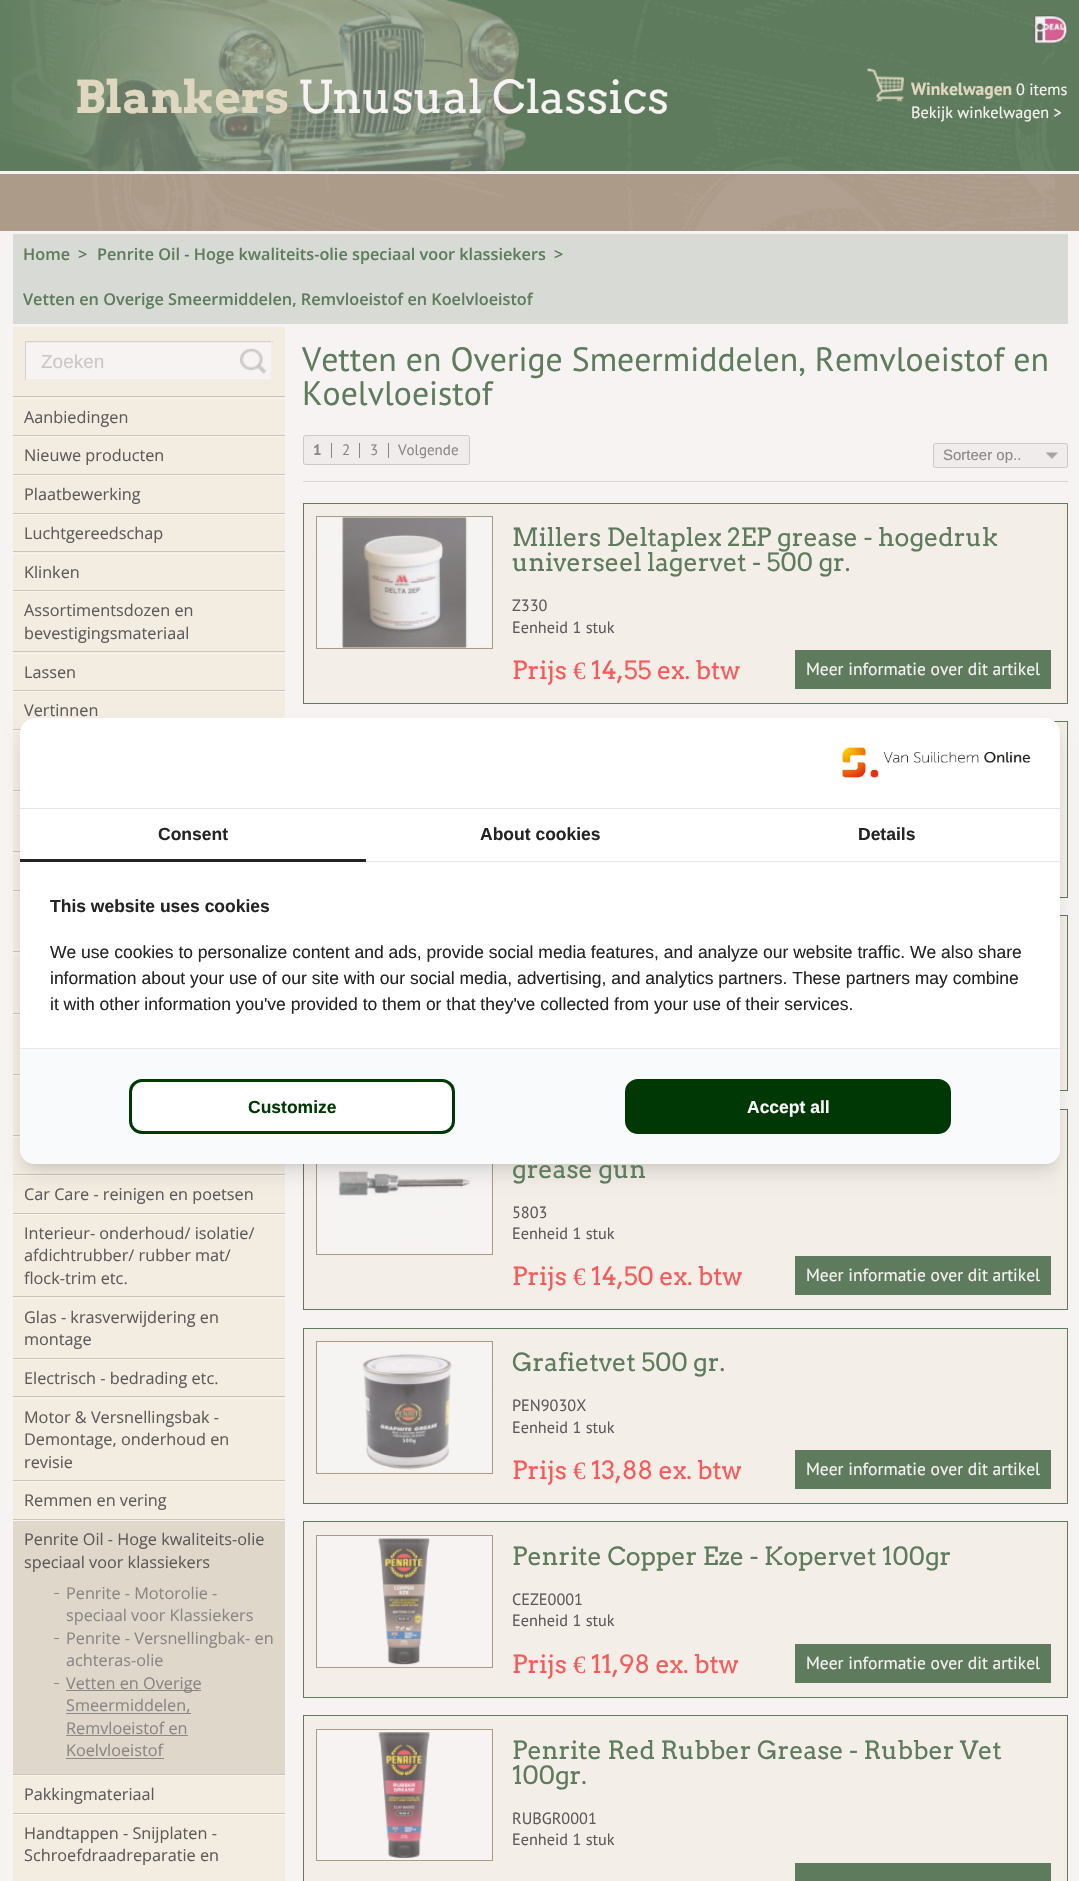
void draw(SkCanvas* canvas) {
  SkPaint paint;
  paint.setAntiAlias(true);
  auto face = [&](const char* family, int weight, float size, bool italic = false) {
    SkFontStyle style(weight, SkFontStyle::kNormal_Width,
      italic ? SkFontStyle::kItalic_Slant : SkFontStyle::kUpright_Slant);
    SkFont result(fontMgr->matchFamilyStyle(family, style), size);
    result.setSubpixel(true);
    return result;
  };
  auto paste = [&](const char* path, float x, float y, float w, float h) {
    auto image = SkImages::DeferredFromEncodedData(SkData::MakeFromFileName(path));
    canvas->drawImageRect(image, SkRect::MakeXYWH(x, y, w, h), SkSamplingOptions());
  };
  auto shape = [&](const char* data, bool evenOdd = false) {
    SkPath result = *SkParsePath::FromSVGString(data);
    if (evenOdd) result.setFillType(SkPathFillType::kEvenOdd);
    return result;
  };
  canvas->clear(0xfff7f3f3);
  paint.setColor(0xff5e7c5d);
  canvas->drawRect(SkRect::MakeXYWH(0, 0, 1079, 171), paint);
  paste("img/2.png", 1033, 15, 35, 29);
  paint.setColor(0xffad9b8a);
  canvas->drawRect(SkRect::MakeXYWH(0, 174, 1079, 57), paint);
  paste("img/1.png", 0, 0, 1055, 231);
  paste("img/3.png", 867, 68, 37, 34);
  {
    const struct { float x, y, w, h; SkColor color; } items[] = {
      {13, 234, 1055, 90, 0xffd8dbd5},
      {13, 327, 272, 1554, 0xfff2ece1},
      {25, 341, 248, 1, 0xffd4d0d0},
      {271, 341, 1, 39, 0xfff1eded},
      {25, 379, 248, 1, 0xfff1eded},
      {25, 341, 1, 39, 0xffd4d0d0},
      {26, 343, 245, 36, 0xfff7f3f3},
    };
    for (auto [x, y, w, h, color] : items) {
      paint.setColor(color);
      canvas->drawRect(SkRect::MakeXYWH(x, y, w, h), paint);
    }
  }
  paste("img/4.png", 240, 348, 27, 26);
  {
    const struct { float x, y, w, h; SkColor color; } items[] = {
      {13, 396, 272, 1, 0xffcfc3b6},
      {13, 398, 272, 1, 0xfff7f3f3},
      {13, 435, 272, 1, 0xffcfc3b6},
      {13, 436, 272, 1, 0xfff7f3f3},
      {13, 474, 272, 1, 0xffcfc3b6},
      {13, 475, 272, 1, 0xfff7f3f3},
      {13, 513, 272, 1, 0xffcfc3b6},
      {13, 514, 272, 1, 0xfff7f3f3},
      {13, 551, 272, 1, 0xffcfc3b6},
      {13, 553, 272, 1, 0xfff7f3f3},
      {13, 590, 272, 1, 0xffcfc3b6},
      {13, 591, 272, 1, 0xfff7f3f3},
      {13, 651, 272, 1, 0xffcfc3b6},
      {13, 653, 272, 1, 0xfff7f3f3},
      {13, 690, 272, 1, 0xffcfc3b6},
      {13, 691, 272, 1, 0xfff7f3f3},
      {13, 729, 8, 1, 0xffcfc3b6},
      {13, 730, 8, 1, 0xfff7f3f3},
      {13, 790, 7, 1, 0xffcfc3b6},
      {13, 791, 7, 1, 0xfff7f3f3},
      {13, 851, 7, 1, 0xffcfc3b6},
      {13, 853, 7, 1, 0xfff7f3f3},
      {13, 890, 7, 1, 0xffcfc3b6},
      {13, 891, 7, 1, 0xfff7f3f3},
      {13, 951, 7, 1, 0xffcfc3b6},
      {13, 953, 7, 1, 0xfff7f3f3},
      {13, 1013, 7, 1, 0xffcfc3b6},
      {13, 1014, 7, 1, 0xfff7f3f3},
      {13, 1074, 7, 1, 0xffcfc3b6},
      {13, 1075, 7, 1, 0xfff7f3f3},
      {13, 1135, 7, 1, 0xffcfc3b6},
      {13, 1136, 7, 1, 0xfff7f3f3},
      {13, 1174, 272, 1, 0xffcfc3b6},
      {13, 1175, 272, 1, 0xfff7f3f3},
      {13, 1213, 272, 1, 0xffcfc3b6},
      {13, 1214, 272, 1, 0xfff7f3f3},
      {13, 1296, 272, 1, 0xffcfc3b6},
      {13, 1298, 272, 1, 0xfff7f3f3},
      {13, 1358, 272, 1, 0xffcfc3b6},
      {13, 1359, 272, 1, 0xfff7f3f3},
      {13, 1396, 272, 1, 0xffcfc3b6},
      {13, 1398, 272, 1, 0xfff7f3f3},
      {13, 1480, 272, 1, 0xffcfc3b6},
      {13, 1481, 272, 1, 0xfff7f3f3},
      {13, 1521, 272, 253, 0xffe0d7cb},
      {13, 1519, 272, 1, 0xffcfc3b6},
      {13, 1520, 272, 1, 0xfff7f3f3},
      {54, 1593, 5, 1, 0xff8c8989},
      {54, 1638, 5, 1, 0xff8c8989},
      {54, 1683, 5, 1, 0xff8c8989},
      {66, 1690, 135, 1, 0xff8c8989},
      {66, 1713, 125, 1, 0xff8c8989},
      {66, 1735, 122, 1, 0xff8c8989},
      {66, 1758, 98, 1, 0xff8c8989},
      {13, 1774, 272, 1, 0xffcfc3b6},
      {13, 1775, 272, 1, 0xfff7f3f3},
      {13, 1813, 272, 1, 0xffcfc3b6},
      {13, 1814, 272, 1, 0xfff7f3f3},
      {303, 481, 765, 1, 0xffd8d5d5},
    };
    for (auto [x, y, w, h, color] : items) {
      paint.setColor(color);
      canvas->drawRect(SkRect::MakeXYWH(x, y, w, h), paint);
    }
  }
  paint.setColor(0xfff0ecec);
  canvas->drawRoundRect(SkRect::MakeXYWH(303.5f, 435.5f, 166, 29), 2, 2, paint);
  paint.setStroke(true);
  paint.setStrokeWidth(1);
  paint.setColor(0xffccc8c8);
  canvas->drawRoundRect(SkRect::MakeXYWH(303.5f, 435.5f, 166, 29), 2, 2, paint);
  paint.setStroke(false);
  {
    const struct { float x, y, w, h; SkColor color; } items[] = {
      {331, 443, 1, 15, 0xff8a8686},
      {359, 443, 1, 15, 0xff8a8686},
      {388, 443, 1, 15, 0xff8a8686},
    };
    for (auto [x, y, w, h, color] : items) {
      paint.setColor(color);
      canvas->drawRect(SkRect::MakeXYWH(x, y, w, h), paint);
    }
  }
  paint.setColor(0xfff0ecec);
  canvas->drawRoundRect(SkRect::MakeXYWH(933.5f, 443.5f, 134, 24), 2, 2, paint);
  paint.setStroke(true);
  paint.setColor(0xffccc8c8);
  canvas->drawRoundRect(SkRect::MakeXYWH(933.5f, 443.5f, 134, 24), 2, 2, paint);
  paste("img/5.png", 1046, 452, 12, 7);
  paint.setStroke(false);
  paint.setColor(0xfff3eee7);
  canvas->drawRect(SkRect::MakeXYWH(303.5f, 503.5f, 764, 200), paint);
  paint.setStroke(true);
  paint.setColor(0xff5e7c5d);
  canvas->drawRect(SkRect::MakeXYWH(303.5f, 503.5f, 764, 200), paint);
  paint.setColor(0xffad9b8a);
  canvas->drawRect(SkRect::MakeXYWH(316.5f, 516.5f, 176, 132), paint);
  paste("img/6.png", 317, 517, 175, 131);
  paint.setStroke(false);
  paint.setColor(0xff5e7c5d);
  canvas->drawRect(SkRect::MakeXYWH(795, 650, 256, 39), paint);
  paint.setColor(0xfff3eee7);
  canvas->drawRect(SkRect::MakeXYWH(1055, 722, 12, 175), paint);
  paint.setStroke(true);
  paint.setColor(0xff5e7c5d);
  canvas->drawRect(SkRect::MakeXYWH(303.5f, 721.5f, 764, 176), paint);
  paint.setStroke(false);
  paint.setColor(0xfff3eee7);
  canvas->drawRect(SkRect::MakeXYWH(1060, 916, 7, 174), paint);
  paint.setStroke(true);
  paint.setColor(0xff5e7c5d);
  canvas->drawRect(SkRect::MakeXYWH(303.5f, 915.5f, 764, 175), paint);
  paint.setStroke(false);
  paint.setColor(0xfff3eee7);
  canvas->drawRect(SkRect::MakeXYWH(303.5f, 1109.5f, 764, 200), paint);
  paint.setStroke(true);
  paint.setColor(0xff5e7c5d);
  canvas->drawRect(SkRect::MakeXYWH(303.5f, 1109.5f, 764, 200), paint);
  paint.setColor(0xffad9b8a);
  canvas->drawRect(SkRect::MakeXYWH(316.5f, 1123.5f, 176, 131), paint);
  paste("img/7.png", 317, 1164, 175, 90);
  paint.setStroke(false);
  paint.setColor(0xff5e7c5d);
  canvas->drawRect(SkRect::MakeXYWH(795, 1256, 256, 39), paint);
  paint.setColor(0xfff3eee7);
  canvas->drawRect(SkRect::MakeXYWH(303.5f, 1328.5f, 764, 175), paint);
  paint.setStroke(true);
  paint.setColor(0xff5e7c5d);
  canvas->drawRect(SkRect::MakeXYWH(303.5f, 1328.5f, 764, 175), paint);
  paint.setColor(0xffad9b8a);
  canvas->drawRect(SkRect::MakeXYWH(316.5f, 1341.5f, 176, 132), paint);
  paste("img/8.png", 317, 1342, 175, 131);
  paint.setStroke(false);
  paint.setColor(0xff5e7c5d);
  canvas->drawRect(SkRect::MakeXYWH(795, 1450, 256, 39), paint);
  paint.setColor(0xfff3eee7);
  canvas->drawRect(SkRect::MakeXYWH(303.5f, 1521.5f, 764, 176), paint);
  paint.setStroke(true);
  paint.setColor(0xff5e7c5d);
  canvas->drawRect(SkRect::MakeXYWH(303.5f, 1521.5f, 764, 176), paint);
  paint.setColor(0xffad9b8a);
  canvas->drawRect(SkRect::MakeXYWH(316.5f, 1535.5f, 176, 132), paint);
  paste("img/9.png", 317, 1536, 175, 131);
  paint.setStroke(false);
  paint.setColor(0xff5e7c5d);
  canvas->drawRect(SkRect::MakeXYWH(795, 1644, 256, 39), paint);
  paint.setColor(0xfff3eee7);
  canvas->drawRect(SkRect::MakeXYWH(303.5f, 1715.5f, 764, 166), paint);
  paint.setStroke(true);
  paint.setColor(0xff5e7c5d);
  canvas->drawRect(SkRect::MakeXYWH(303.5f, 1715.5f, 764, 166), paint);
  paint.setColor(0xffad9b8a);
  canvas->drawRect(SkRect::MakeXYWH(316.5f, 1729.5f, 176, 131), paint);
  paste("img/10.png", 317, 1730, 175, 130);
  paint.setStroke(false);
  paint.setColor(0xff5e7c5d);
  canvas->drawRect(SkRect::MakeXYWH(795, 1863, 256, 18), paint);
  paint.setColor(0x1a000000);
  paint.setMaskFilter(SkMaskFilter::MakeBlur(kNormal_SkBlurStyle, 4));
  canvas->drawRoundRect(SkRect::MakeXYWH(25, 728, 1030, 436), 10, 10, paint);
  paint.setMaskFilter(nullptr);
  paint.setMaskFilter(SkMaskFilter::MakeBlur(kNormal_SkBlurStyle, 9.5f));
  canvas->drawRoundRect(SkRect::MakeXYWH(24, 734, 1032, 439), 11, 11, paint);
  paint.setMaskFilter(nullptr);
  paint.setColor(0xffffffff);
  canvas->drawRoundRect(SkRect::MakeXYWH(20, 718, 1040, 446), 15, 15, paint);
  paint.setColor(0xffe5e7eb);
  canvas->drawRect(SkRect::MakeXYWH(20, 808, 1040, 1), paint);
  paste("img/11.png", 842, 747, 188, 31);
  canvas->drawRect(SkRect::MakeXYWH(366, 861, 694, 1), paint);
  paint.setColor(0xff242424);
  canvas->drawRect(SkRect::MakeXYWH(20, 859, 346, 3), paint);
  canvas->save();
  canvas->clipPath(shape("M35 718H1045C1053.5 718 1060 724.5 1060 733V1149C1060 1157.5 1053.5 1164 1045 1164H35C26.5 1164 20 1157.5 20 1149V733C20 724.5 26.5 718 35 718Z"), true);
  paint.setColor(0xffffffff);
  paint.setMaskFilter(SkMaskFilter::MakeBlur(kNormal_SkBlurStyle, 12.5f));
  canvas->drawRect(SkRect::MakeXYWH(10, 1013, 1060, 136), paint);
  paint.setMaskFilter(nullptr);
  canvas->restore();
  paint.setColor(0xfff9fafb);
  canvas->drawPath(shape("M20 1048H1060V1149C1060 1157.5 1053.5 1164 1045 1164H35C26.5 1164 20 1157.5 20 1149Z"), paint);
  paint.setColor(0xffe5e7eb);
  canvas->drawRect(SkRect::MakeXYWH(20, 1048, 1040, 1), paint);
  paint.setColor(0xffffffff);
  canvas->drawRoundRect(SkRect::MakeXYWH(130.5f, 1080.5f, 323, 52), 11.5f, 11.5f, paint);
  paint.setStroke(true);
  paint.setStrokeWidth(3);
  paint.setColor(0xff003805);
  canvas->drawRoundRect(SkRect::MakeXYWH(130.5f, 1080.5f, 323, 52), 11.5f, 11.5f, paint);
  paint.setStroke(false);
  canvas->drawRoundRect(SkRect::MakeXYWH(626.5f, 1080.5f, 323, 52), 11.5f, 11.5f, paint);
  paint.setStroke(true);
  canvas->drawRoundRect(SkRect::MakeXYWH(626.5f, 1080.5f, 323, 52), 11.5f, 11.5f, paint);
  auto f0 = face("Arvo", 700, 45);
  paint.setStroke(false);
  paint.setColor(0xffe0d7c0);
  canvas->drawString("Blankers", 75, 113, f0, paint);
  auto f1 = face("Arvo", 400, 45);
  paint.setColor(0xfff7f3f3);
  canvas->drawString("Unusual Classics", 298, 113, f1, paint);
  auto f2 = face("PT Sans", 700, 17.5f);
  paint.setColor(0xffe0d7c0);
  canvas->drawString("Winkelwagen", 911, 95, f2, paint);
  auto f3 = face("PT Sans", 400, 16.25f);
  paint.setColor(0xfff7f3f3);
  canvas->drawString("0 items", 1016, 95, f3, paint);
  canvas->drawString("Bekijk winkelwagen >", 911, 118, f3, paint);
  auto f4 = face("Open Sans", 600, 16.25f);
  paint.setColor(0xff5e7c5d);
  {
    const struct { const char* s; float x, y; } items[] = {
      {"Home", 23, 260},
      {">", 78, 260},
      {"Penrite Oil - Hoge kwaliteits-olie speciaal voor klassiekers", 97, 260},
      {">", 554, 260},
      {"Vetten en Overige Smeermiddelen, Remvloeistof en Koelvloeistof", 23, 305},
    };
    for (auto [s, x, y] : items) {
      canvas->drawString(s, x, y, f4, paint);
    }
  }
  auto f5 = face("Liberation Sans", 400, 19);
  paint.setColor(0xffcbc7c7);
  canvas->drawString("Zoeken", 41, 368, f5, paint);
  auto f6 = face("Open Sans", 400, 16.25f);
  paint.setColor(0xff5e5a5a);
  {
    const struct { const char* s; float x, y; } items[] = {
      {"Aanbiedingen", 24, 423},
      {"Nieuwe producten", 24, 461},
      {"Plaatbewerking", 24, 500},
      {"Luchtgereedschap", 24, 539},
      {"Klinken", 24, 578},
      {"Assortimentsdozen en", 24, 616},
      {"bevestigingsmateriaal", 24, 639},
      {"Lassen", 24, 678},
      {"Vertinnen", 24, 716},
      {"Car Care - reinigen en poetsen", 24, 1200},
      {"Interieur- onderhoud/ isolatie/", 24, 1239},
      {"afdichtrubber/ rubber mat/", 24, 1261},
      {"flock-trim etc.", 24, 1284},
      {"Glas - krasverwijdering en", 24, 1323},
      {"montage", 24, 1345},
      {"Electrisch - bedrading etc.", 24, 1384},
      {"Motor & Versnellingsbak -", 24, 1423},
      {"Demontage, onderhoud en", 24, 1445},
      {"revisie", 24, 1468},
      {"Remmen en vering", 24, 1506},
      {"Penrite Oil - Hoge kwaliteits-olie", 24, 1545},
      {"speciaal voor klassiekers", 24, 1568},
    };
    for (auto [s, x, y] : items) {
      canvas->drawString(s, x, y, f6, paint);
    }
  }
  paint.setColor(0xff8a8686);
  {
    const struct { const char* s; float x, y; } items[] = {
      {"Penrite - Motorolie -", 66, 1599},
      {"speciaal voor Klassiekers", 66, 1621},
      {"Penrite - Versnellingbak- en", 66, 1644},
      {"achteras-olie", 66, 1666},
      {"Vetten en Overige", 66, 1689},
      {"Smeermiddelen,", 66, 1711},
      {"Remvloeistof en", 66, 1734},
      {"Koelvloeistof", 66, 1756},
    };
    for (auto [s, x, y] : items) {
      canvas->drawString(s, x, y, f6, paint);
    }
  }
  paint.setColor(0xff5e5a5a);
  {
    const struct { const char* s; float x, y; } items[] = {
      {"Pakkingmateriaal", 24, 1800},
      {"Handtappen - Snijplaten -", 24, 1839},
      {"Schroefdraadreparatie en", 24, 1861},
    };
    for (auto [s, x, y] : items) {
      canvas->drawString(s, x, y, f6, paint);
    }
  }
  auto f7 = face("PT Sans", 400, 33.75f);
  paint.setColor(0xff5e7c5d);
  canvas->drawString("Vetten en Overige Smeermiddelen, Remvloeistof en", 302, 371, f7, paint);
  canvas->drawString("Koelvloeistof", 302, 405, f7, paint);
  auto f8 = face("PT Sans", 700, 15);
  paint.setColor(0xff8a8686);
  canvas->drawString("1", 313, 455, f8, paint);
  auto f9 = face("PT Sans", 400, 15);
  {
    const struct { const char* s; float x, y; } items[] = {
      {"2", 342, 455},
      {"3", 370, 455},
      {"Volgende", 398, 455},
    };
    for (auto [s, x, y] : items) {
      canvas->drawString(s, x, y, f9, paint);
    }
  }
  auto f10 = face("Liberation Sans", 400, 15);
  canvas->drawString("Sorteer op..", 943, 460, f10, paint);
  auto f11 = face("Arvo", 400, 25);
  paint.setColor(0xff5e7c5d);
  canvas->drawString("Millers Deltaplex 2EP grease - hogedruk", 512, 546, f11, paint);
  canvas->drawString("universeel lagervet - 500 gr.", 512, 571, f11, paint);
  paint.setColor(0xff5e5a5a);
  canvas->drawString("Z330", 512, 611, f3, paint);
  canvas->drawString("Eenheid 1 stuk", 512, 633, f3, paint);
  paint.setColor(0xfff75a5a);
  canvas->drawString("Prijs", 512, 679, f11, paint);
  auto f12 = face("Liberation Serif", 400, 25);
  canvas->drawString("€", 573, 679, f12, paint);
  canvas->drawString("14,55 ex. btw", 591, 679, f11, paint);
  auto f13 = face("PT Sans", 400, 17.5f);
  paint.setColor(0xfff7f3f3);
  canvas->drawString("Meer informatie over dit artikel", 806, 675, f13, paint);
  paint.setColor(0xff5e7c5d);
  canvas->drawString("grease gun", 512, 1178, f11, paint);
  paint.setColor(0xff5e5a5a);
  canvas->drawString("5803", 512, 1218, f3, paint);
  canvas->drawString("Eenheid 1 stuk", 512, 1239, f3, paint);
  paint.setColor(0xfff75a5a);
  canvas->drawString("Prijs", 512, 1285, f11, paint);
  canvas->drawString("€", 573, 1285, f12, paint);
  canvas->drawString("14,50 ex. btw", 591, 1285, f11, paint);
  paint.setColor(0xfff7f3f3);
  canvas->drawString("Meer informatie over dit artikel", 806, 1281, f13, paint);
  paint.setColor(0xff5e7c5d);
  canvas->drawString("Grafietvet 500 gr.", 512, 1371, f11, paint);
  paint.setColor(0xff5e5a5a);
  canvas->drawString("PEN9030X", 512, 1411, f3, paint);
  canvas->drawString("Eenheid 1 stuk", 512, 1433, f3, paint);
  paint.setColor(0xfff75a5a);
  canvas->drawString("Prijs", 512, 1479, f11, paint);
  canvas->drawString("€", 573, 1479, f12, paint);
  canvas->drawString("13,88 ex. btw", 591, 1479, f11, paint);
  paint.setColor(0xfff7f3f3);
  canvas->drawString("Meer informatie over dit artikel", 806, 1475, f13, paint);
  paint.setColor(0xff5e7c5d);
  canvas->drawString("Penrite Copper Eze - Kopervet 100gr", 512, 1565, f11, paint);
  paint.setColor(0xff5e5a5a);
  canvas->drawString("CEZE0001", 512, 1605, f3, paint);
  canvas->drawString("Eenheid 1 stuk", 512, 1626, f3, paint);
  paint.setColor(0xfff75a5a);
  canvas->drawString("Prijs", 512, 1673, f11, paint);
  canvas->drawString("€", 573, 1673, f12, paint);
  canvas->drawString("11,98 ex. btw", 591, 1673, f11, paint);
  paint.setColor(0xfff7f3f3);
  canvas->drawString("Meer informatie over dit artikel", 806, 1669, f13, paint);
  paint.setColor(0xff5e7c5d);
  canvas->drawString("Penrite Red Rubber Grease - Rubber Vet", 512, 1759, f11, paint);
  canvas->drawString("100gr.", 512, 1784, f11, paint);
  paint.setColor(0xff5e5a5a);
  canvas->drawString("RUBGR0001", 512, 1824, f3, paint);
  canvas->drawString("Eenheid 1 stuk", 512, 1845, f3, paint);
  auto f14 = face("Liberation Sans", 700, 17.5f);
  paint.setColor(0xff242424);
  {
    const struct { const char* s; float x, y; } items[] = {
      {"Consent", 158, 840},
      {"About cookies", 480, 840},
      {"Details", 858, 840},
      {"This website uses cookies", 50, 912},
    };
    for (auto [s, x, y] : items) {
      canvas->drawString(s, x, y, f14, paint);
    }
  }
  auto f15 = face("Liberation Sans", 400, 17.5f);
  {
    const struct { const char* s; float x, y; } items[] = {
      {"We use cookies to personalize content and ads, provide social media features, and analyze our website traffic. We also share", 50, 958},
      {"information about your use of our site with our social media, advertising, and analytics partners. These partners may combine", 50, 984},
      {"it with other information you've provided to them or that they've collected from your use of their services.", 50, 1010},
    };
    for (auto [s, x, y] : items) {
      canvas->drawString(s, x, y, f15, paint);
    }
  }
  paint.setColor(0xff003805);
  canvas->drawString("Customize", 248, 1113, f14, paint);
  paint.setColor(0xffffffff);
  canvas->drawString("Accept all", 747, 1113, f14, paint);
}
